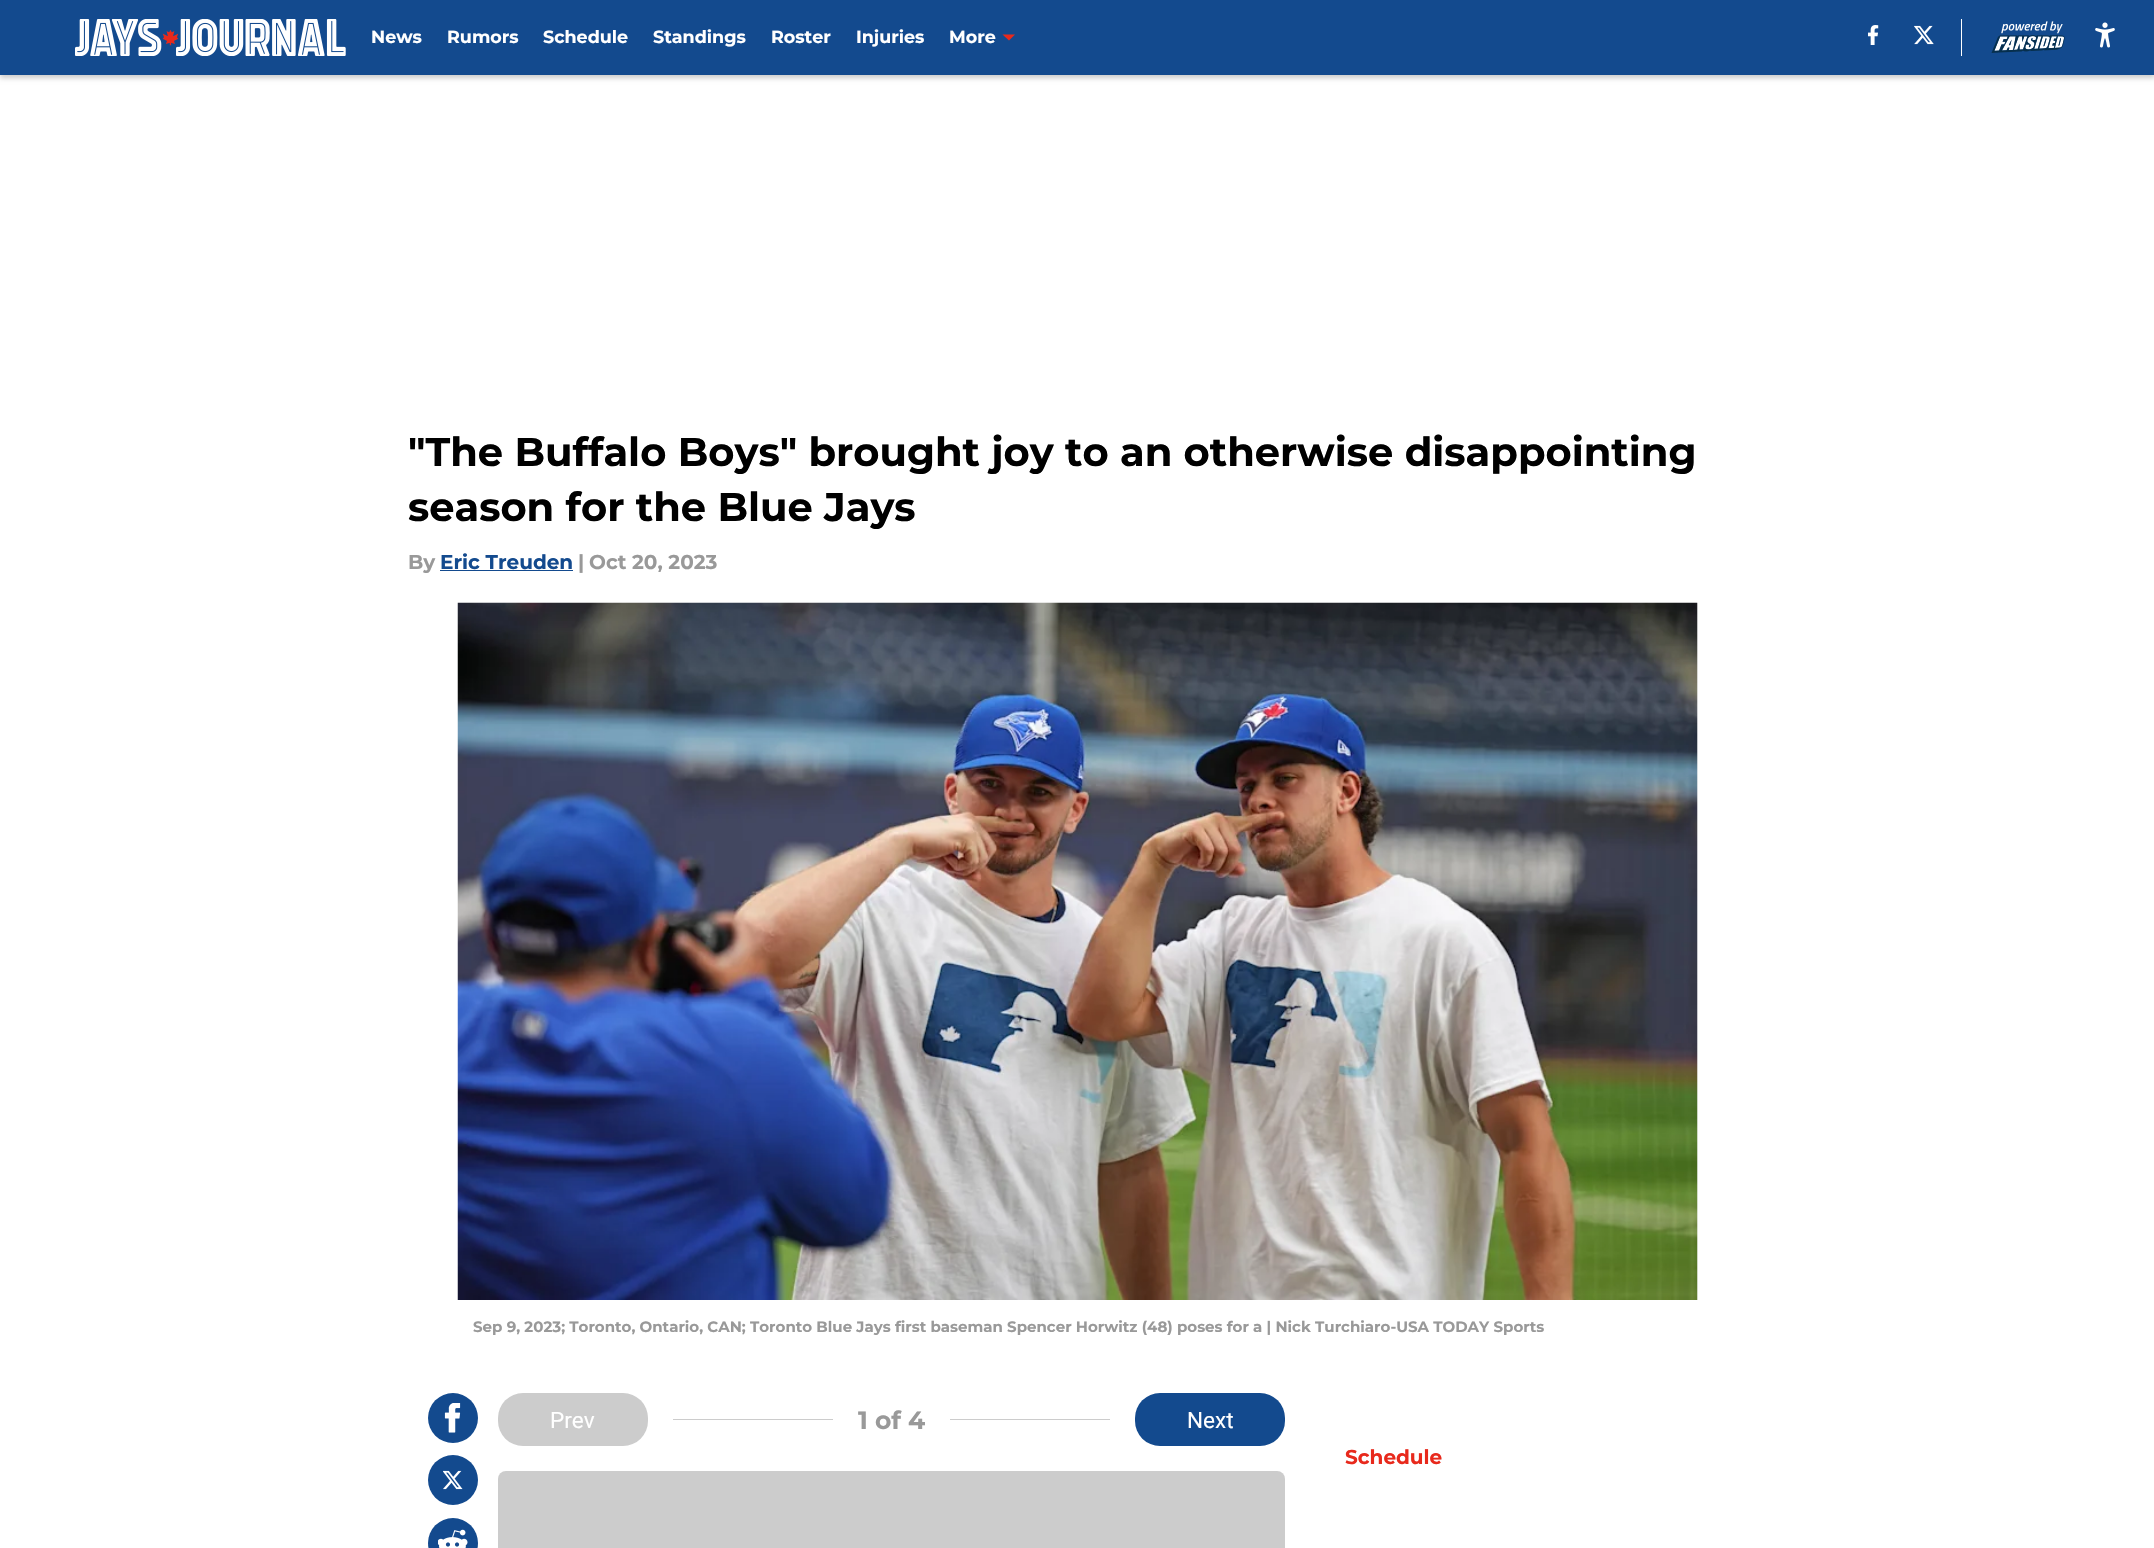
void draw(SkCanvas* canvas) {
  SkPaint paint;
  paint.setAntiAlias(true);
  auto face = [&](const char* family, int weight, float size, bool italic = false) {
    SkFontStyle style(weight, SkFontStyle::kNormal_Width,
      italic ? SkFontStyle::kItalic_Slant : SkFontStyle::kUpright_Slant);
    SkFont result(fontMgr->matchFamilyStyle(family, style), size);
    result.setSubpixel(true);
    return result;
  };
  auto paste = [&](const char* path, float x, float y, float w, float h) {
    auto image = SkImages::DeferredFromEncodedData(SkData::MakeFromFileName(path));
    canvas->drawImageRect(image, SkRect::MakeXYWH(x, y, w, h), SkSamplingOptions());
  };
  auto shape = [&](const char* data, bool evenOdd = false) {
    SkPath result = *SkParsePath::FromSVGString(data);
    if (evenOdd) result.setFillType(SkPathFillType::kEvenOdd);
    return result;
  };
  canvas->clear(0xffffffff);
  paint.setColor(0x33000000);
  paint.setMaskFilter(SkMaskFilter::MakeBlur(kNormal_SkBlurStyle, 2.5f));
  canvas->drawRect(SkRect::MakeXYWH(0, 3, 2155, 75), paint);
  paint.setMaskFilter(nullptr);
  paint.setColor(0xff134a8e);
  canvas->drawRect(SkRect::MakeXYWH(0, 0, 2154, 75), paint);
  paste("img/1.png", 75, 19, 271, 37);
  paint.setColor(0xffe8291c);
  canvas->drawPath(shape("M1002.5 34.5L1009 40.5L1015 34.5Z", true), paint);
  paste("img/2.png", 1868, 25, 11, 20);
  paste("img/3.png", 1914, 25, 20, 20);
  paint.setColor(0xffffffff);
  canvas->drawRect(SkRect::MakeXYWH(1961, 19, 1, 37), paint);
  paste("img/4.png", 1991, 21, 74, 32);
  paste("img/5.png", 2095, 22, 20, 26);
  paint.setColor(0xff134a8e);
  canvas->drawRect(SkRect::MakeXYWH(440, 570, 133, 1), paint);
  paint.setColor(0xfff7f7f7);
  canvas->drawRect(SkRect::MakeXYWH(1697, 603, 1, 697), paint);
  paste("img/6.png", 457, 602, 1241, 698);
  paint.setColor(0xff134a8e);
  canvas->drawCircle(453, 1418, 25, paint);
  paste("img/7.png", 444, 1403, 17, 30);
  canvas->drawCircle(453, 1480, 25, paint);
  paste("img/8.png", 443, 1470, 20, 20);
  canvas->drawCircle(453, 1543, 25, paint);
  paste("img/9.png", 438, 1529, 30, 19);
  paint.setColor(0xffcccccc);
  canvas->drawRoundRect(SkRect::MakeXYWH(498, 1393, 150, 53), 25, 25, paint);
  canvas->drawRect(SkRect::MakeXYWH(673, 1419, 160, 1), paint);
  canvas->drawRect(SkRect::MakeXYWH(950, 1419, 160, 1), paint);
  paint.setColor(0xff134a8e);
  canvas->drawRoundRect(SkRect::MakeXYWH(1135, 1393, 150, 53), 25, 25, paint);
  paint.setColor(0xffcccccc);
  canvas->drawRoundRect(SkRect::MakeXYWH(498, 1471, 787, 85), 8, 8, paint);
  auto f0 = face("Montserrat", 100, 17.5f);
  paint.setColor(0xffffffff);
  {
    const struct { const char* s; float x, y; } items[] = {
      {"News", 371, 43},
      {"Rumors", 447, 43},
      {"Schedule", 543, 43},
      {"Standings", 653, 43},
      {"Roster", 771, 43},
      {"Injuries", 856, 43},
      {"More", 949, 43},
    };
    for (auto [s, x, y] : items) {
      canvas->drawString(s, x, y, f0, paint);
    }
  }
  auto f1 = face("Montserrat", 100, 40);
  paint.setColor(0xff000000);
  canvas->drawString("\"The Buffalo Boys\" brought joy to an otherwise disappointing", 408, 466, f1, paint);
  canvas->drawString("season for the Blue Jays", 408, 521, f1, paint);
  auto f2 = face("Montserrat", 100, 20);
  paint.setColor(0xff999999);
  canvas->drawString("By", 408, 569, f2, paint);
  paint.setColor(0xff134a8e);
  canvas->drawString("Eric Treuden", 440, 569, f2, paint);
  paint.setColor(0xff999999);
  canvas->drawString("|", 578, 569, f2, paint);
  canvas->drawString("Oct 20, 2023", 589, 569, f2, paint);
  auto f3 = face("Montserrat", 100, 15);
  canvas->drawString("Sep 9, 2023; Toronto, Ontario, CAN; Toronto Blue Jays first baseman Spencer Horwitz (48) poses for a | Nick Turchiaro-USA TODAY Sports", 473, 1332, f3, paint);
  auto f4 = face("Roboto", 400, 22.5f);
  paint.setColor(0xffffffff);
  canvas->drawString("Prev", 550, 1428, f4, paint);
  auto f5 = face("Montserrat", 100, 25);
  paint.setColor(0xff999999);
  canvas->drawString("1 of 4", 858, 1429, f5, paint);
  paint.setColor(0xffffffff);
  canvas->drawString("Next", 1187, 1428, f4, paint);
  paint.setColor(0xffe8291c);
  canvas->drawString("Schedule", 1345, 1464, f2, paint);
}
